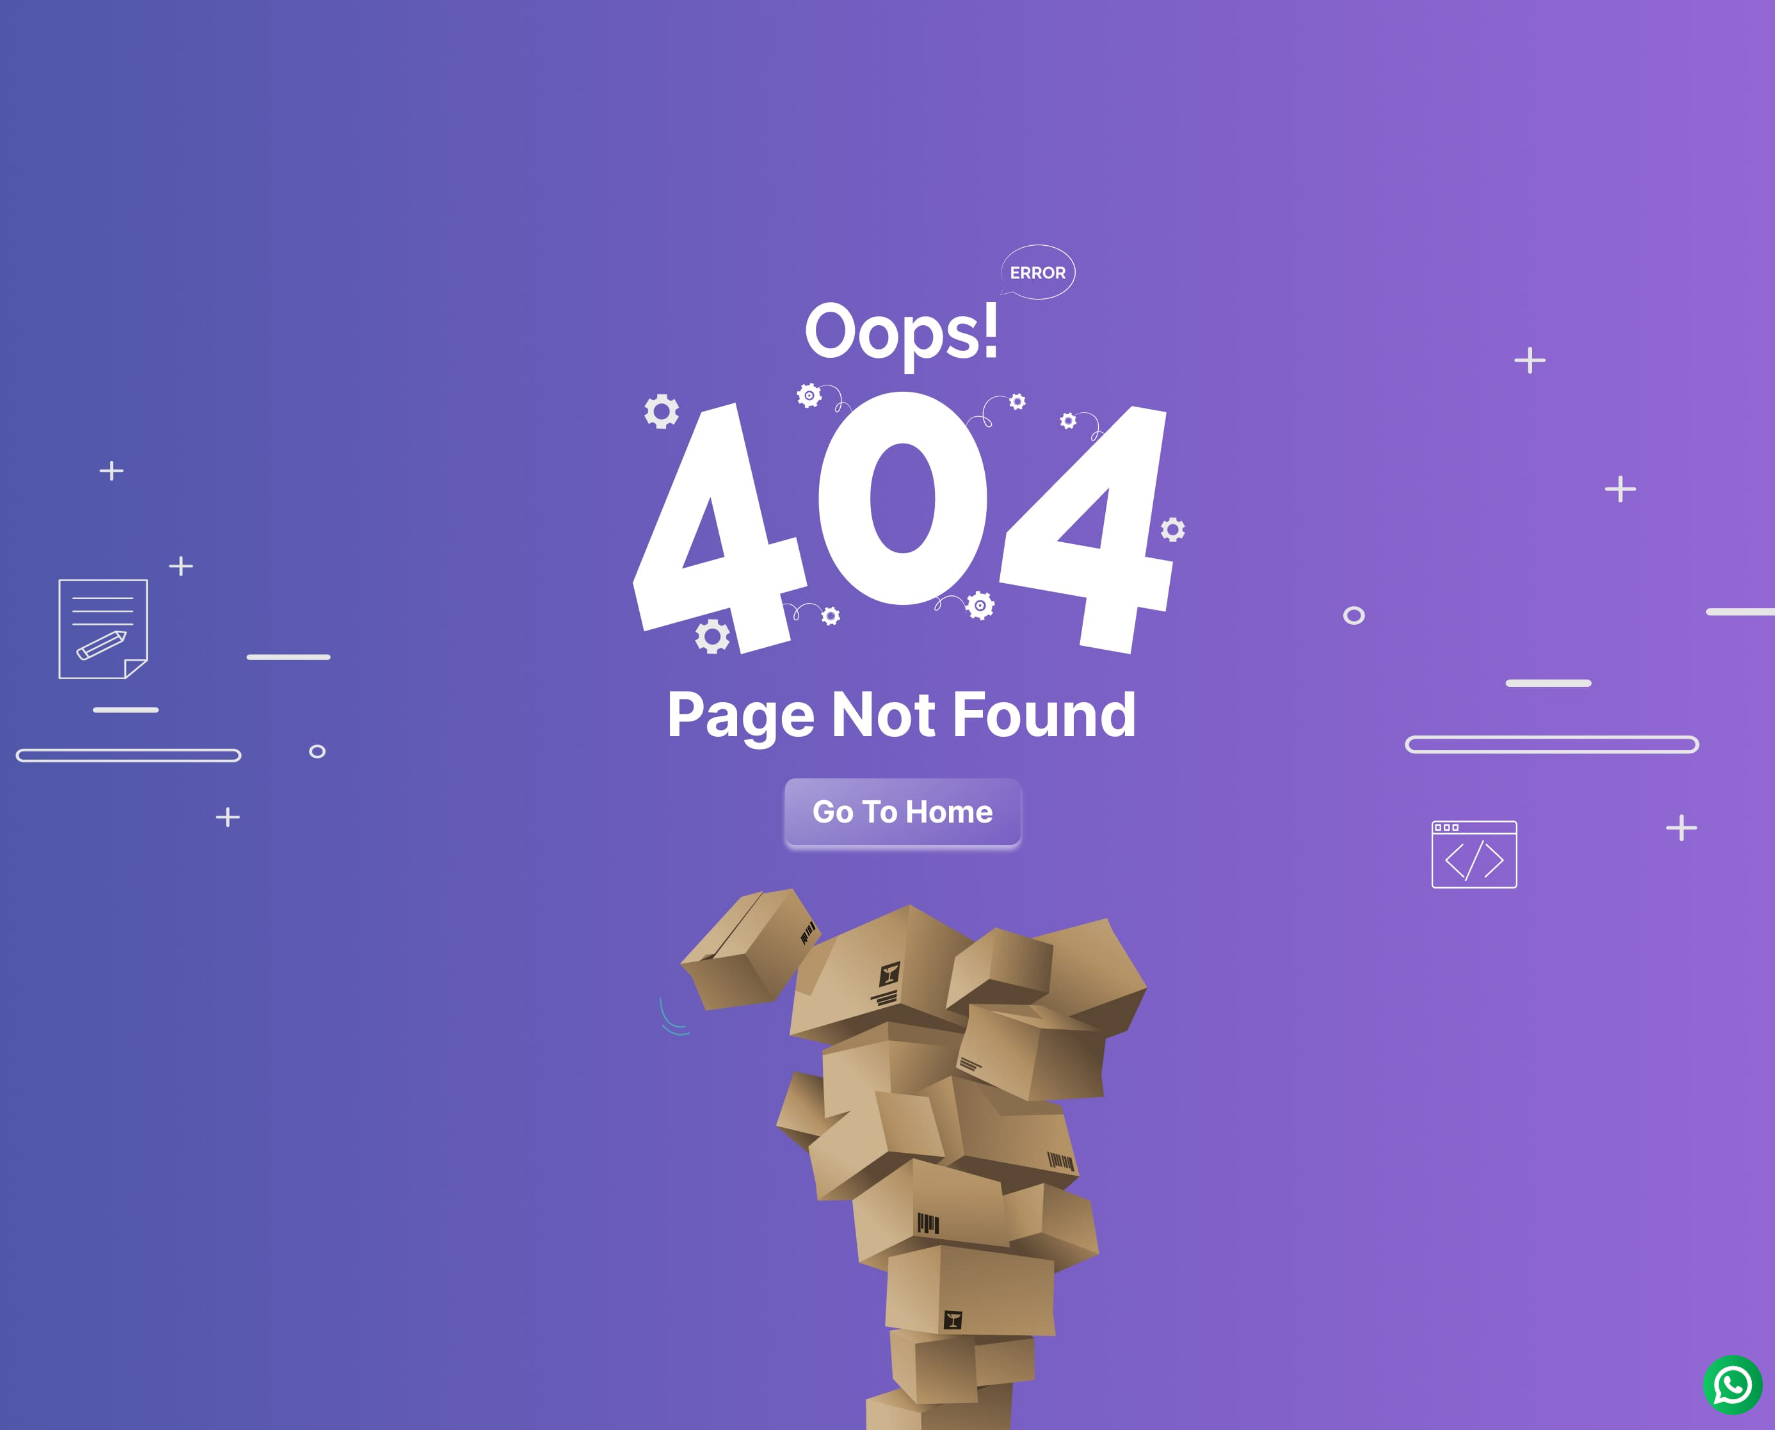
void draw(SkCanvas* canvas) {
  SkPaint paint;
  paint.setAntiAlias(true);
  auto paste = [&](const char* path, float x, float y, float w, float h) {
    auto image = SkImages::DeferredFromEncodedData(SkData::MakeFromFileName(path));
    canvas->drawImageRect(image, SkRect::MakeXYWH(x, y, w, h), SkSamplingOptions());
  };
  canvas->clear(0xffffffff);
  paste("img/1.png", 0, 0, 1775, 1430);
  paste("img/2.png", 1703, 1355, 60, 60);
}
